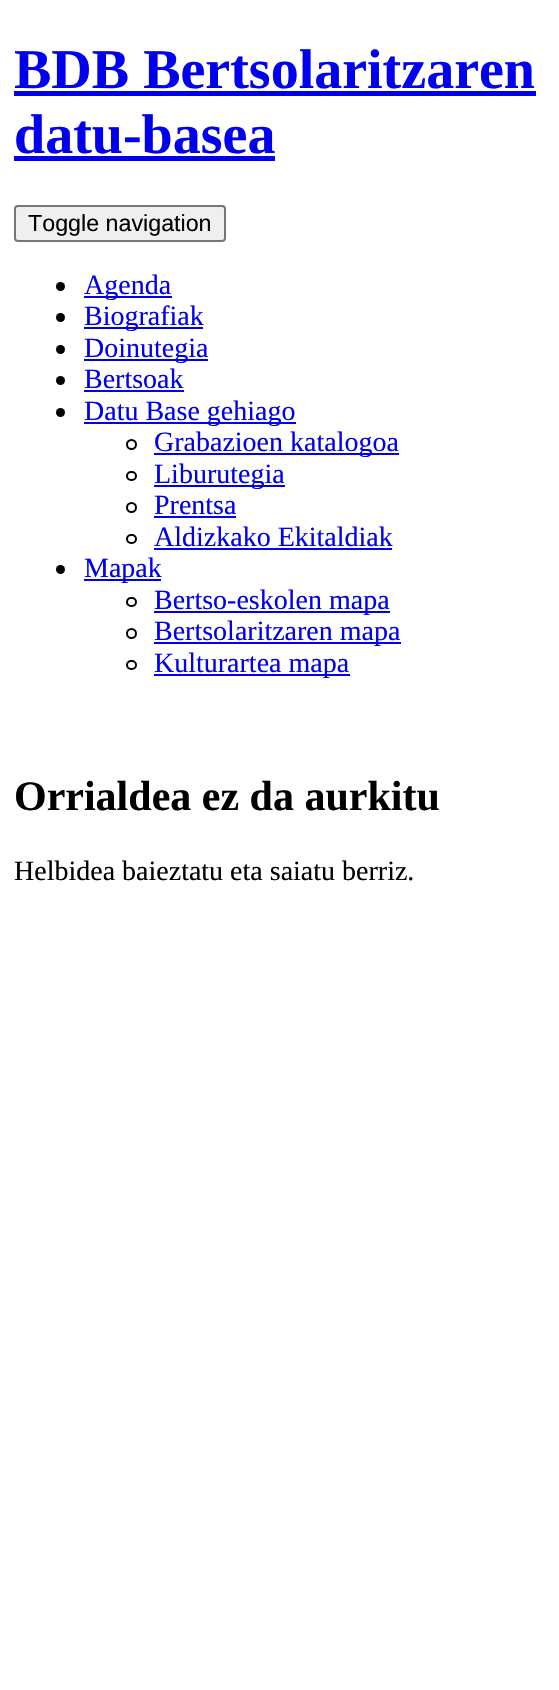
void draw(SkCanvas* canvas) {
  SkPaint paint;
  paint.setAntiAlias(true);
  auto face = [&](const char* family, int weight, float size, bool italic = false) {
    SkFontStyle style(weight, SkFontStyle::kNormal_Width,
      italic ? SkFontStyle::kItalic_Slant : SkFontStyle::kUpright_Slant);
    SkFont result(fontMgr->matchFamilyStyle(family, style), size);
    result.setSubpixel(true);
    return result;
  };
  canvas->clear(0xffffffff);
  paint.setColor(0xff0000ee);
  canvas->drawRect(SkRect::MakeXYWH(14, 91, 522, 5), paint);
  canvas->drawRect(SkRect::MakeXYWH(14, 156, 261, 5), paint);
  paint.setColor(0xffefefef);
  canvas->drawRoundRect(SkRect::MakeXYWH(15, 206, 210, 35), 3, 3, paint);
  paint.setStroke(true);
  paint.setStrokeWidth(2);
  paint.setColor(0xff767676);
  canvas->drawRoundRect(SkRect::MakeXYWH(15, 206, 210, 35), 3, 3, paint);
  paint.setStroke(false);
  paint.setColor(0xff000000);
  canvas->drawCircle(60.5f, 286.5f, 4.5f, paint);
  paint.setColor(0xff0000ee);
  canvas->drawRect(SkRect::MakeXYWH(84, 296, 88, 2), paint);
  paint.setColor(0xff000000);
  canvas->drawCircle(60.5f, 317.5f, 4.5f, paint);
  paint.setColor(0xff0000ee);
  canvas->drawRect(SkRect::MakeXYWH(84, 327, 119, 2), paint);
  paint.setColor(0xff000000);
  canvas->drawCircle(60.5f, 349.5f, 4.5f, paint);
  paint.setColor(0xff0000ee);
  canvas->drawRect(SkRect::MakeXYWH(84, 359, 124, 2), paint);
  paint.setColor(0xff000000);
  canvas->drawCircle(60.5f, 380.5f, 4.5f, paint);
  paint.setColor(0xff0000ee);
  canvas->drawRect(SkRect::MakeXYWH(84, 390, 100, 2), paint);
  paint.setColor(0xff000000);
  canvas->drawCircle(60.5f, 412.5f, 4.5f, paint);
  paint.setColor(0xff0000ee);
  canvas->drawRect(SkRect::MakeXYWH(84, 422, 212, 2), paint);
  paint.setStroke(true);
  paint.setColor(0xff000000);
  canvas->drawCircle(131.5f, 444.5f, 4.5f, paint);
  paint.setStroke(false);
  paint.setColor(0xff0000ee);
  canvas->drawRect(SkRect::MakeXYWH(154, 453, 245, 2), paint);
  paint.setStroke(true);
  paint.setColor(0xff000000);
  canvas->drawRoundRect(SkRect::MakeXYWH(127, 472, 9, 8), 4, 4, paint);
  paint.setStroke(false);
  paint.setColor(0xff0000ee);
  canvas->drawRect(SkRect::MakeXYWH(154, 485, 131, 2), paint);
  paint.setStroke(true);
  paint.setColor(0xff000000);
  canvas->drawCircle(131.5f, 507.5f, 4.5f, paint);
  paint.setStroke(false);
  paint.setColor(0xff0000ee);
  canvas->drawRect(SkRect::MakeXYWH(154, 516, 82, 2), paint);
  paint.setStroke(true);
  paint.setColor(0xff000000);
  canvas->drawRoundRect(SkRect::MakeXYWH(127, 535, 9, 8), 4, 4, paint);
  paint.setStroke(false);
  paint.setColor(0xff0000ee);
  canvas->drawRect(SkRect::MakeXYWH(154, 548, 238, 2), paint);
  paint.setColor(0xff000000);
  canvas->drawCircle(60.5f, 569.5f, 4.5f, paint);
  paint.setColor(0xff0000ee);
  canvas->drawRect(SkRect::MakeXYWH(84, 579, 77, 2), paint);
  paint.setStroke(true);
  paint.setColor(0xff000000);
  canvas->drawRoundRect(SkRect::MakeXYWH(127, 598, 9, 8), 4, 4, paint);
  paint.setStroke(false);
  paint.setColor(0xff0000ee);
  canvas->drawRect(SkRect::MakeXYWH(154, 611, 236, 2), paint);
  paint.setStroke(true);
  paint.setColor(0xff000000);
  canvas->drawCircle(131.5f, 633.5f, 4.5f, paint);
  paint.setStroke(false);
  paint.setColor(0xff0000ee);
  canvas->drawRect(SkRect::MakeXYWH(154, 642, 247, 2), paint);
  paint.setStroke(true);
  paint.setColor(0xff000000);
  canvas->drawRoundRect(SkRect::MakeXYWH(127, 661, 9, 8), 4, 4, paint);
  paint.setStroke(false);
  paint.setColor(0xff0000ee);
  canvas->drawRect(SkRect::MakeXYWH(154, 674, 196, 2), paint);
  auto f0 = face("Liberation Serif", 700, 56);
  canvas->drawString("BDB Bertsolaritzaren", 14, 88, f0, paint);
  canvas->drawString("datu-basea", 14, 153, f0, paint);
  auto f1 = face("Liberation Sans", 400, 23.25f);
  paint.setColor(0xff000000);
  canvas->drawString("Toggle navigation", 28, 231, f1, paint);
  auto f2 = face("Liberation Serif", 400, 28);
  paint.setColor(0xff0000ee);
  {
    const struct { const char* s; float x, y; } items[] = {
      {"Agenda", 84, 294},
      {"Biografiak", 84, 325},
      {"Doinutegia", 84, 357},
      {"Bertsoak", 84, 388},
      {"Datu Base gehiago", 84, 420},
      {"Grabazioen katalogoa", 154, 451},
      {"Liburutegia", 154, 483},
      {"Prentsa", 154, 514},
      {"Aldizkako Ekitaldiak", 154, 546},
      {"Mapak", 84, 577},
      {"Bertso-eskolen mapa", 154, 609},
      {"Bertsolaritzaren mapa", 154, 640},
      {"Kulturartea mapa", 154, 672},
    };
    for (auto [s, x, y] : items) {
      canvas->drawString(s, x, y, f2, paint);
    }
  }
  auto f3 = face("Liberation Serif", 700, 42);
  paint.setColor(0xff000000);
  canvas->drawString("Orrialdea ez da aurkitu", 14, 810, f3, paint);
  canvas->drawString("Helbidea baieztatu eta saiatu berriz.", 14, 880, f2, paint);
}
